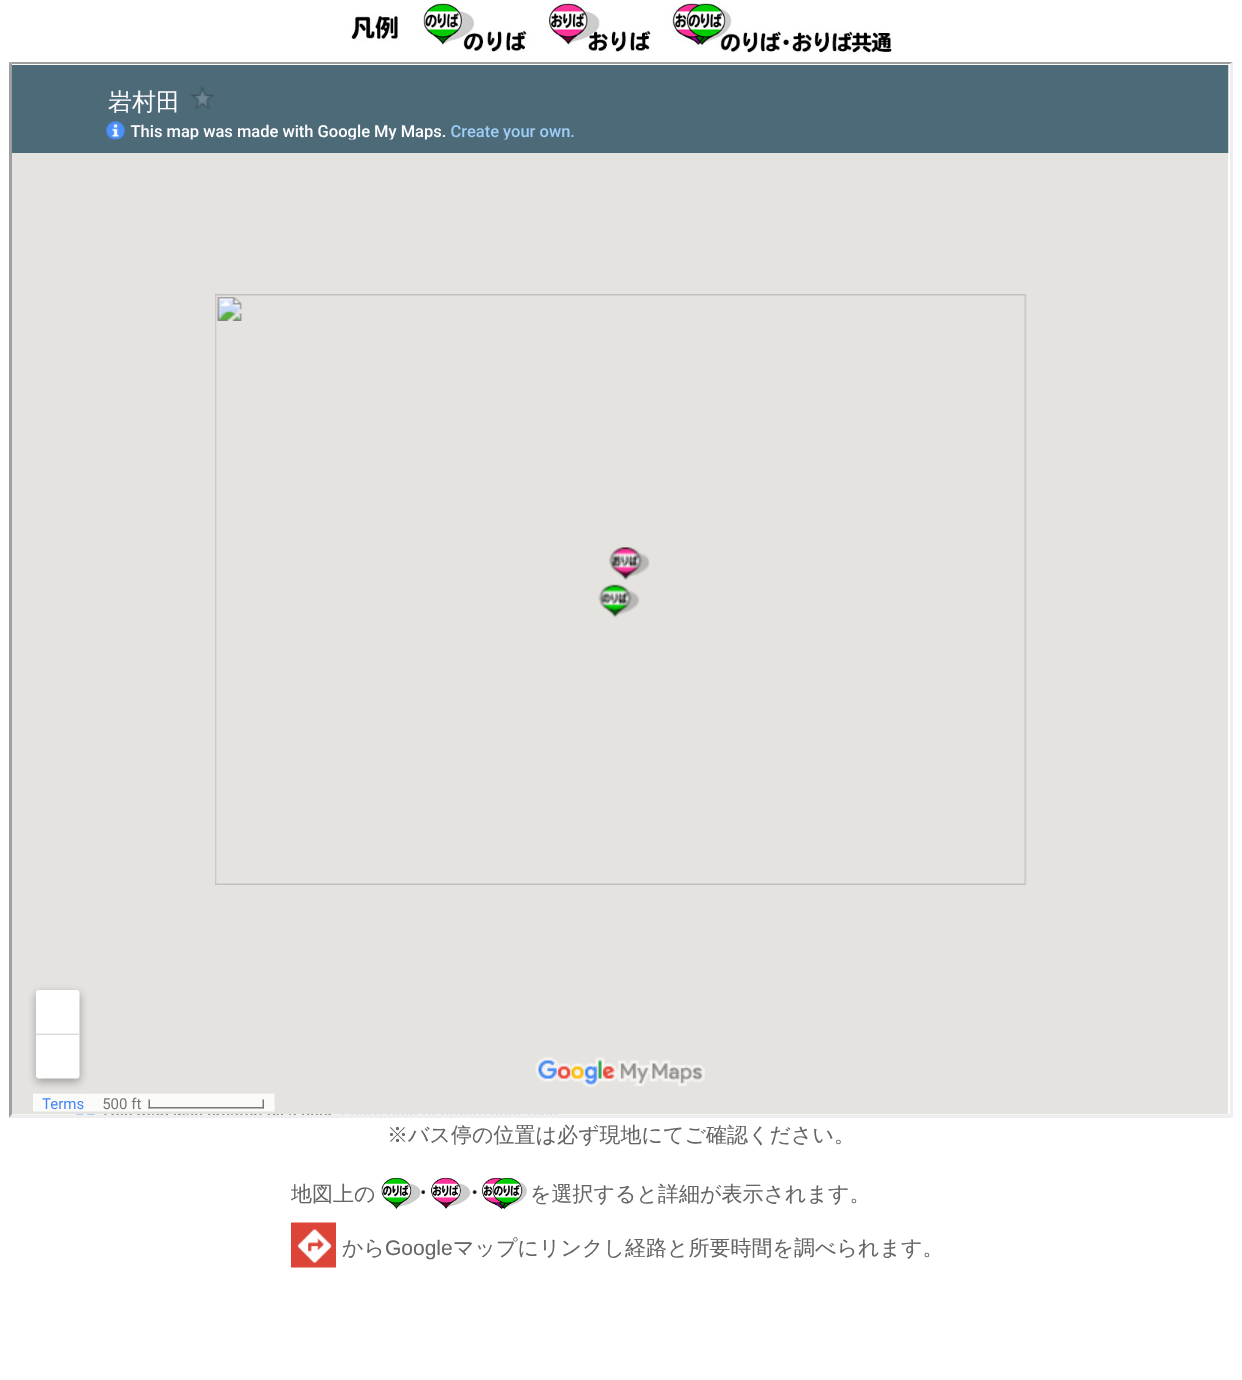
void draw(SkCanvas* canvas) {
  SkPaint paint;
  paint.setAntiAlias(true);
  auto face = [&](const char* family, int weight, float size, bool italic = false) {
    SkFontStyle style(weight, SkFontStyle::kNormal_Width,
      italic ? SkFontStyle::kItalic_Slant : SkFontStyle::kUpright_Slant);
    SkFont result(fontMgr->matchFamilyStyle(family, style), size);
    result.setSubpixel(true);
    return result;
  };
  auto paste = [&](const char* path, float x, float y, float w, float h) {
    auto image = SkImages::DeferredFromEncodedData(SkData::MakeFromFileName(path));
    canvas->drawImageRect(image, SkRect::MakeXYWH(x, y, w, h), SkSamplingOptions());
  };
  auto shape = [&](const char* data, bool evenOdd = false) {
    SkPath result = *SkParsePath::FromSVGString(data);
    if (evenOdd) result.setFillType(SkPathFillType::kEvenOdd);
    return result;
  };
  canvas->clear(0xffffffff);
  paste("img/1.png", 350, 0, 542, 53);
  paint.setColor(0xff9f9f9f);
  canvas->drawPath(shape("M9 62H1233L1230 64H12Z"), paint);
  paint.setColor(0xffeeeeee);
  canvas->drawPath(shape("M1233 62V1118L1230 1114V64Z"), paint);
  canvas->drawPath(shape("M1233 1118H9L12 1114H1230Z"), paint);
  paint.setColor(0xff9f9f9f);
  canvas->drawPath(shape("M9 1118V62L12 64V1114Z"), paint);
  paste("img/2.png", 12, 64, 1217, 1051);
  paste("img/3.png", 381, 1177, 146, 32);
  paste("img/4.png", 291, 1222, 45, 46);
  auto f0 = face("WenQuanYi Zen Hei", 500, 21);
  paint.setColor(0xff666666);
  {
    const struct { const char* s; float x, y; } items[] = {
      {"※バス停の位置は必ず現地にてご確認ください。", 387, 1142},
      {"地図上の", 291, 1201},
      {"を選択すると詳細が表示されます。", 530, 1201},
      {"から", 342, 1255},
    };
    for (auto [s, x, y] : items) {
      canvas->drawString(s, x, y, f0, paint);
    }
  }
  auto f1 = face("Liberation Sans", 400, 21);
  canvas->drawString("Google", 385, 1255, f1, paint);
  canvas->drawString("マップにリンクし経路と所要時間を調べられます。", 453, 1255, f0, paint);
}
